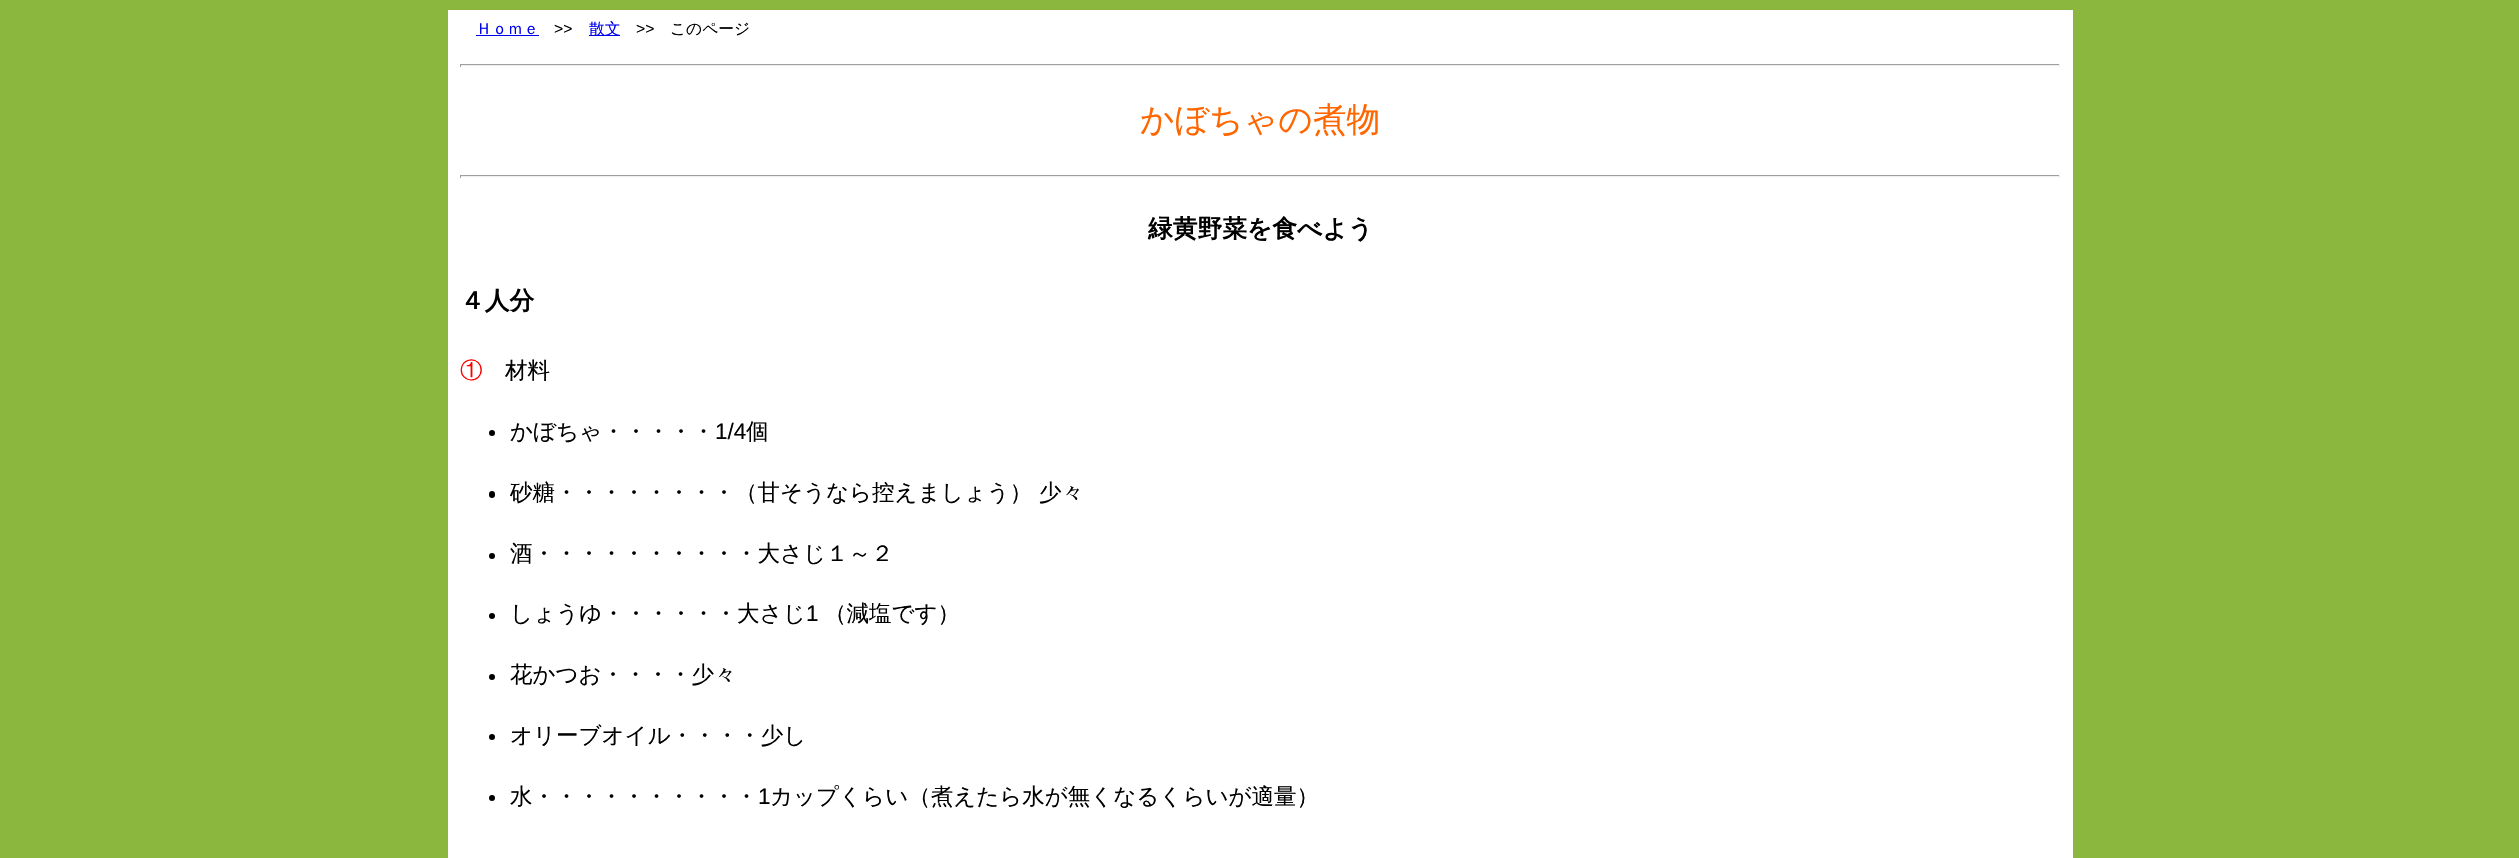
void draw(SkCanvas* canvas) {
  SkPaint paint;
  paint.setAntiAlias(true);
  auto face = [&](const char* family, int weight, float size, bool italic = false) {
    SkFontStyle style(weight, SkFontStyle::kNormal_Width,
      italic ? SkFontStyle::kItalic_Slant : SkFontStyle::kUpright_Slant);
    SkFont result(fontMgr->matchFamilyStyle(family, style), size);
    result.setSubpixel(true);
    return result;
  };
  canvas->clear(0xff8bb73e);
  {
    const struct { float x, y, w, h; SkColor color; } items[] = {
      {448, 10, 1625, 848, 0xffffffff},
      {476, 35, 63, 1, 0xff0000ee},
      {589, 35, 31, 1, 0xff0000ee},
      {460, 64, 1600, 1, 0xff9f9f9f},
      {2059, 64, 1, 3, 0xffeeeeee},
      {460, 65, 1600, 1, 0xffeeeeee},
      {460, 64, 1, 3, 0xff9f9f9f},
      {460, 175, 1600, 1, 0xff9f9f9f},
      {2059, 175, 1, 3, 0xffeeeeee},
      {460, 176, 1600, 1, 0xffeeeeee},
      {460, 175, 1, 3, 0xff9f9f9f},
    };
    for (auto [x, y, w, h, color] : items) {
      paint.setColor(color);
      canvas->drawRect(SkRect::MakeXYWH(x, y, w, h), paint);
    }
  }
  paint.setColor(0xff000000);
  canvas->drawCircle(492, 433, 3, paint);
  canvas->drawRoundRect(SkRect::MakeXYWH(489, 491, 6, 7), 3, 3, paint);
  canvas->drawCircle(492, 556, 3, paint);
  canvas->drawCircle(492, 616, 3, paint);
  canvas->drawCircle(492, 677, 3, paint);
  canvas->drawCircle(492, 737, 3, paint);
  canvas->drawCircle(492, 798, 3, paint);
  auto f0 = face("WenQuanYi Zen Hei", 500, 15.75f);
  paint.setColor(0xff0000ee);
  canvas->drawString("Ｈｏｍｅ", 476, 34, f0, paint);
  auto f1 = face("Liberation Sans", 400, 15.75f);
  paint.setColor(0xff000000);
  canvas->drawString(">>", 554, 34, f1, paint);
  paint.setColor(0xff0000ee);
  canvas->drawString("散文", 589, 34, f0, paint);
  paint.setColor(0xff000000);
  canvas->drawString(">>", 636, 34, f1, paint);
  canvas->drawString("このページ", 670, 34, f0, paint);
  auto f2 = face("WenQuanYi Zen Hei", 500, 33.75f);
  paint.setColor(0xffff6600);
  canvas->drawString("かぼちゃの煮物", 1140, 131, f2, paint);
  auto f3 = face("WenQuanYi Zen Hei", 700, 24.75f);
  paint.setColor(0xff000000);
  canvas->drawString("緑黄野菜を食べよう", 1148, 237, f3, paint);
  canvas->drawString("４人分", 460, 309, f3, paint);
  auto f4 = face("WenQuanYi Zen Hei", 500, 22.5f);
  paint.setColor(0xffff0000);
  canvas->drawString("①", 460, 378, f4, paint);
  paint.setColor(0xff000000);
  canvas->drawString("材料", 505, 378, f4, paint);
  canvas->drawString("かぼちゃ・・・・・", 510, 439, f4, paint);
  auto f5 = face("Liberation Sans", 400, 22.5f);
  canvas->drawString("1/4", 715, 439, f5, paint);
  {
    const struct { const char* s; float x, y; } items[] = {
      {"個", 746, 439},
      {"砂糖・・・・・・・・（甘そうなら控えましょう） 少々", 510, 500},
      {"酒・・・・・・・・・・大さじ１～２", 510, 561},
      {"しょうゆ・・・・・・大さじ", 510, 621},
    };
    for (auto [s, x, y] : items) {
      canvas->drawString(s, x, y, f4, paint);
    }
  }
  canvas->drawString("1", 806, 621, f5, paint);
  {
    const struct { const char* s; float x, y; } items[] = {
      {"（減塩です）", 824, 621},
      {"花かつお・・・・少々", 510, 682},
      {"オリーブオイル・・・・少し", 510, 743},
      {"水・・・・・・・・・・", 510, 804},
    };
    for (auto [s, x, y] : items) {
      canvas->drawString(s, x, y, f4, paint);
    }
  }
  canvas->drawString("1", 758, 804, f5, paint);
  canvas->drawString("カップくらい（煮えたら水が無くなるくらいが適量）", 770, 804, f4, paint);
}
